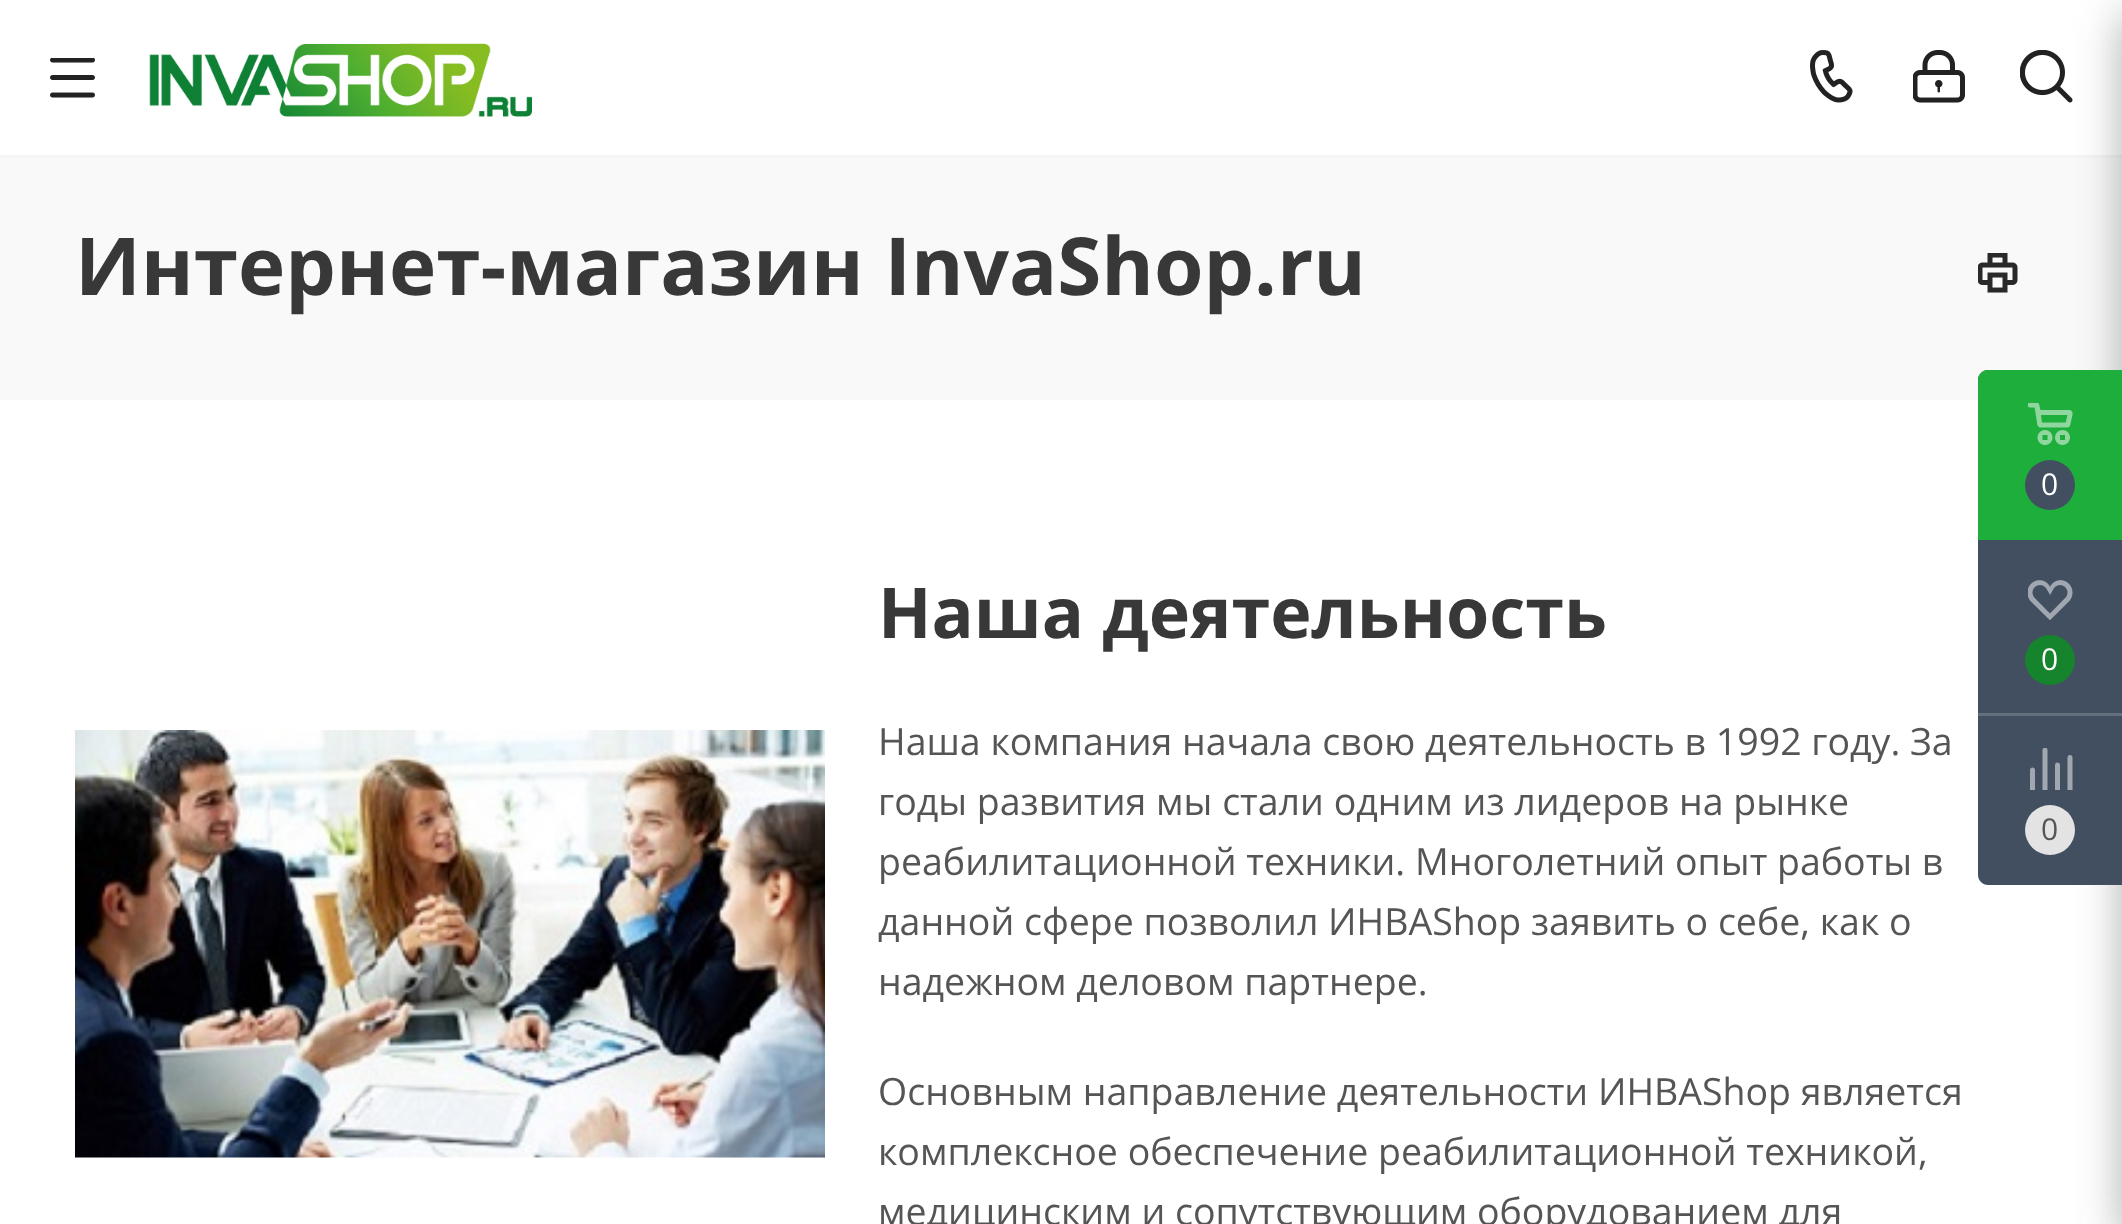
<!DOCTYPE html>
<meta charset="utf-8">
<style>body { margin: 0 } canvas { display: block }</style>
<canvas id="canvas" width="2122" height="1224"></canvas>
<script type="module">
  const canvas = document.getElementById("canvas");
  const g = canvas.getContext("2d");
  g.miterLimit = 4;
  g.fontKerning = "normal";
  function drawText(s, x, y, [font, color]) {
    g.font = font;
    g.fillStyle = color;
    g.fillText(s, x, y);
  }
  function fillBox(x, y, w, h, color) {
    g.fillStyle = color;
    g.fillRect(x, y, w, h);
  }
  async function drawPicture(src, x, y, w, h) {
    const img = new Image();
    img.src = src;
    await img.decode();
    g.drawImage(img, x, y, w, h);
  }

  const s1 = ["bold 80px Open Sans", "#383838"];
  const s2 = ["bold 70px Open Sans", "#383838"];
  const s3 = ["37.5px Open Sans", "#555555"];
  const s4 = ["30px Open Sans", "#FFFFFF"];
  const s5 = ["30px Open Sans", "#555555"];

  fillBox(0, 0, 2122, 1224, "#FFFFFF");
  fillBox(0, 155, 2122, 3, "#F5F5F5");
  await drawPicture("pic1.png", 50, 58, 45, 40);
  await drawPicture("pic2.png", 145, 40, 390, 80);
  await drawPicture("pic3.png", 1810, 50, 43, 53);
  await drawPicture("pic4.png", 1913, 50, 52, 53);
  await drawPicture("pic5.png", 2020, 50, 53, 53);
  fillBox(0, 158, 2122, 242, "#F9F9F9");
  drawText("Интернет-магазин InvaShop.ru", 75, 295, s1);
  await drawPicture("pic6.png", 1978, 253, 40, 40);
  drawText("Наша деятельность", 878, 638, s2);
  await drawPicture("pic7.png", 75, 730, 750, 428);
  drawText("Наша компания начала свою деятельность в 1992 году. За", 878, 755, s3);
  drawText("годы развития мы стали одним из лидеров на рынке", 878, 815, s3);
  drawText("реабилитационной техники. Многолетний опыт работы в", 878, 875, s3);
  drawText("данной сфере позволил ИНВАShop заявить о себе, как о", 878, 935, s3);
  drawText("надежном деловом партнере.", 878, 995, s3);
  drawText("Основным направление деятельности ИНВАShop является", 878, 1105, s3);
  drawText("комплексное обеспечение реабилитационной техникой,", 878, 1165, s3);
  drawText("медицинским и сопутствующим оборудованием для", 878, 1225, s3);
  g.fillStyle = "rgba(44, 44, 44, 0.4)";
  g.filter = "blur(22.5px)";
  g.beginPath();
  g.roundRect(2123, 15, 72, 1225, 5);
  g.fill();
  g.filter = "none";
  g.fillStyle = "#424F60";
  g.beginPath();
  g.moveTo(1988, 370);
  g.lineTo(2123, 370);
  g.lineTo(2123, 885);
  g.lineTo(1988, 885);
  g.bezierCurveTo(1982.5, 885, 1978, 880.5, 1978, 875);
  g.lineTo(1978, 380);
  g.bezierCurveTo(1978, 374.5, 1982.5, 370, 1988, 370);
  g.closePath();
  g.fill();
  g.fillStyle = "#1EAE3C";
  g.beginPath();
  g.moveTo(1988, 370);
  g.lineTo(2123, 370);
  g.lineTo(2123, 540);
  g.lineTo(1978, 540);
  g.lineTo(1978, 380);
  g.bezierCurveTo(1978, 374.5, 1982.5, 370, 1988, 370);
  g.closePath();
  g.fill();
  await drawPicture("pic8.png", 2028, 403, 45, 42);
  g.fillStyle = "#424F60";
  g.beginPath();
  g.arc(2050, 485, 25, 0, Math.PI * 2);
  g.fill();
  drawText("0", 2041, 495, s4);
  await drawPicture("pic9.png", 2028, 580, 45, 40);
  g.fillStyle = "#16832D";
  g.beginPath();
  g.arc(2050, 660, 25, 0, Math.PI * 2);
  g.fill();
  drawText("0", 2041, 670, s4);
  fillBox(1978, 713, 144, 3, "#636F7D");
  await drawPicture("pic10.png", 2030, 748, 43, 42);
  g.fillStyle = "#E3E3E3";
  g.beginPath();
  g.arc(2050, 830, 25, 0, Math.PI * 2);
  g.fill();
  drawText("0", 2041, 840, s5);
</script>
